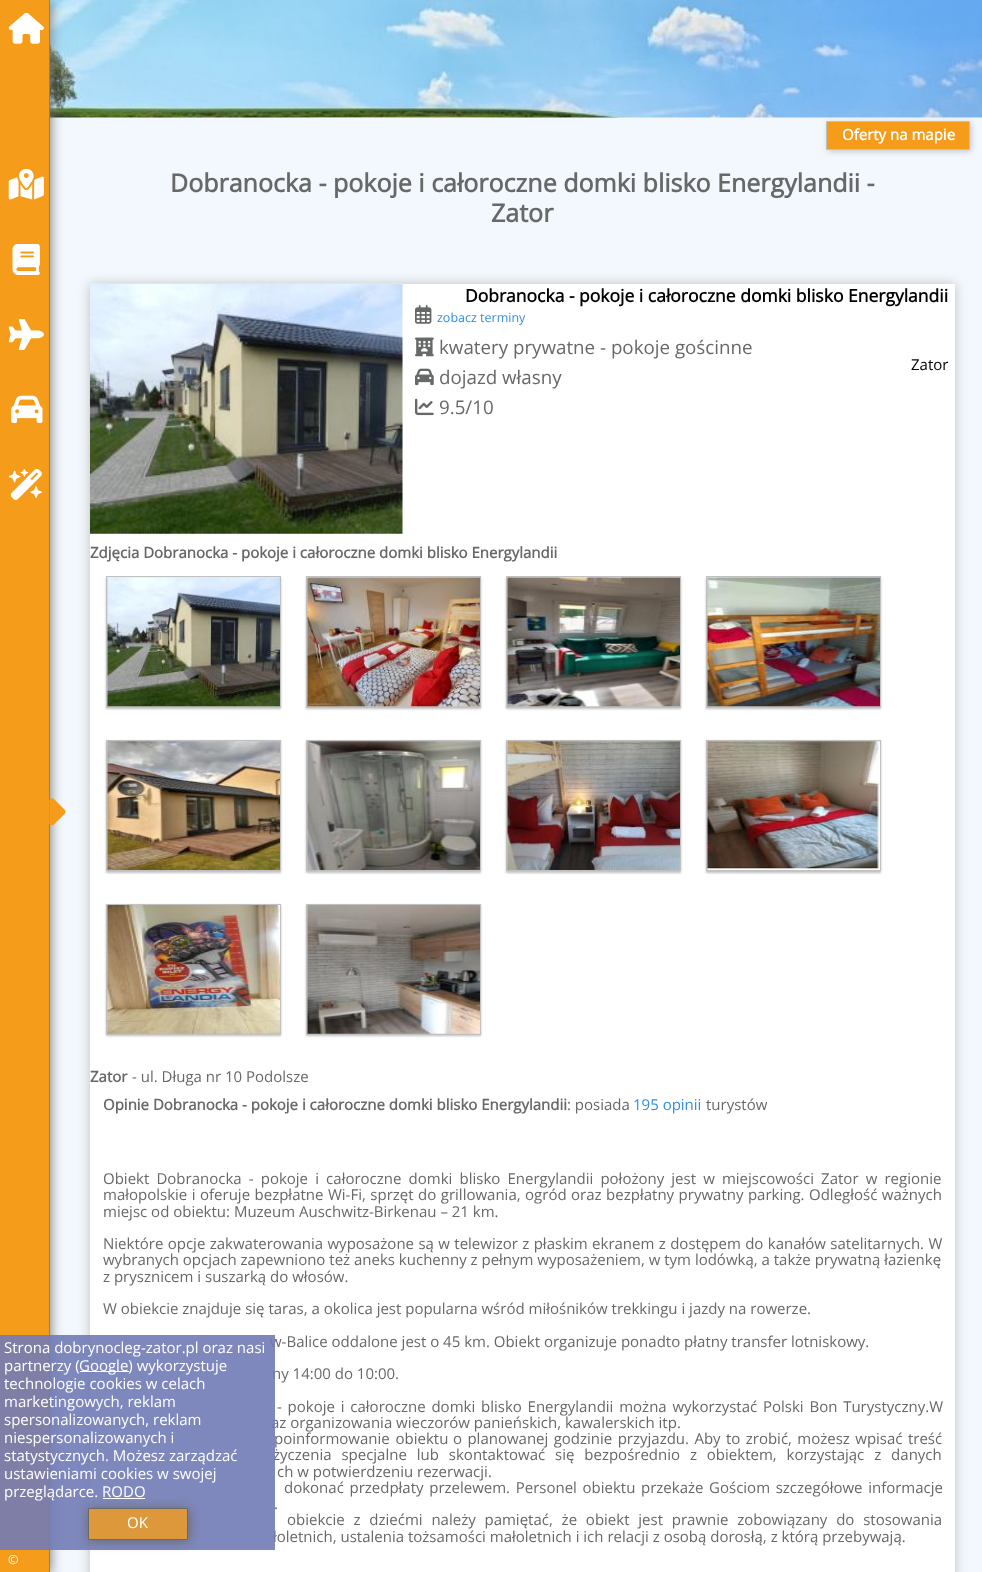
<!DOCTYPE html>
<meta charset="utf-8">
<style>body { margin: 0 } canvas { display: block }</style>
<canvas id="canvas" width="982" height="1572"></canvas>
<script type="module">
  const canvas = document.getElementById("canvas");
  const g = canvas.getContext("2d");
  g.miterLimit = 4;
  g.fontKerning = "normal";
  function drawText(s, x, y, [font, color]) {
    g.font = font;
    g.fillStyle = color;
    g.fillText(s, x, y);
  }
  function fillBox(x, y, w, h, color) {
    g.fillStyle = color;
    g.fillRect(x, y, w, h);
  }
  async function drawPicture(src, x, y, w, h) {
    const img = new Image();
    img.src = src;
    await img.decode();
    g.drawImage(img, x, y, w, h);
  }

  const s1 = ["bold 15px Open Sans", "#FFFFFF"];
  const s2 = ["bold 25px Open Sans", "#676868"];
  const s3 = ["bold 17.5px Open Sans", "#000000"];
  const s4 = ["12.5px Open Sans", "#348FE1"];
  const s5 = ["18.75px Open Sans", "#676868"];
  const s6 = ["15px Open Sans", "#000000"];
  const s7 = ["bold 15px Open Sans", "#676868"];
  const s8 = ["15px Open Sans", "#676868"];
  const s9 = ["15px Open Sans", "#348FE1"];
  const s10 = ["15px Open Sans", "#FFFFFF"];
  const s11 = ["12.5px Open Sans", "#FFFFFF"];

  fillBox(0, 0, 982, 1572, "#F2F8FD");
  await drawPicture("pic1.png", 50, 0, 932, 118);
  g.fillStyle = "#C0C0C0";
  g.filter = "blur(3px)";
  g.beginPath();
  g.rect(828, 123, 143, 28);
  g.fill();
  g.filter = "none";
  g.fillStyle = "#F59C1A";
  g.beginPath();
  g.rect(826.5, 121.5, 143, 28);
  g.fill();
  g.strokeStyle = "#C0C0C0";
  g.stroke();
  drawText("Oferty na mapie", 842, 140, s1);
  drawText("Dobranocka - pokoje i całoroczne domki blisko Energylandii -", 170, 192, s2);
  drawText("Zator", 491, 222, s2);
  g.fillStyle = "#C0C0C0";
  g.filter = "blur(6px)";
  g.beginPath();
  g.rect(90, 284, 865, 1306);
  g.fill();
  g.filter = "none";
  fillBox(90, 284, 865, 1288, "#FFFFFF");
  await drawPicture("pic2.png", 90, 283, 312, 1);
  await drawPicture("pic3.png", 90, 284, 313, 250);
  drawText("Dobranocka - pokoje i całoroczne domki blisko Energylandii", 465, 302, s3);
  await drawPicture("pic4.png", 415, 305, 17, 19);
  drawText("zobacz terminy", 437, 322, s4);
  await drawPicture("pic5.png", 415, 337, 19, 20);
  drawText("kwatery prywatne - pokoje gościnne", 439, 354, s5);
  drawText("Zator", 911, 370, s6);
  await drawPicture("pic6.png", 415, 368, 19, 18);
  drawText("dojazd własny", 439, 384, s5);
  await drawPicture("pic7.png", 415, 398, 19, 18);
  drawText("9.5/10", 439, 414, s5);
  drawText("Zdjęcia Dobranocka - pokoje i całoroczne domki blisko Energylandii", 90, 558, s7);
  g.fillStyle = "#C0C0C0";
  g.filter = "blur(1px)";
  g.beginPath();
  g.rect(106, 578, 175, 131);
  g.fill();
  g.filter = "none";
  g.strokeRect(106.5, 576.5, 174, 131);
  await drawPicture("pic8.png", 107, 577, 173, 130);
  g.filter = "blur(1px)";
  g.beginPath();
  g.rect(306, 578, 175, 131);
  g.fill();
  g.filter = "none";
  g.strokeRect(306.5, 576.5, 174, 131);
  await drawPicture("pic9.png", 307, 577, 173, 130);
  g.filter = "blur(1px)";
  g.beginPath();
  g.rect(506, 578, 175, 131);
  g.fill();
  g.filter = "none";
  g.strokeRect(506.5, 576.5, 174, 131);
  await drawPicture("pic10.png", 507, 577, 173, 130);
  g.filter = "blur(1px)";
  g.beginPath();
  g.rect(706, 578, 175, 131);
  g.fill();
  g.filter = "none";
  g.strokeRect(706.5, 576.5, 174, 131);
  await drawPicture("pic11.png", 707, 577, 173, 130);
  g.filter = "blur(1px)";
  g.beginPath();
  g.rect(106, 741, 175, 132);
  g.fill();
  g.filter = "none";
  g.strokeRect(106.5, 740.5, 174, 130);
  await drawPicture("pic12.png", 107, 741, 173, 129);
  g.filter = "blur(1px)";
  g.beginPath();
  g.rect(306, 741, 175, 132);
  g.fill();
  g.filter = "none";
  g.strokeRect(306.5, 740.5, 174, 130);
  await drawPicture("pic13.png", 307, 741, 173, 129);
  g.filter = "blur(1px)";
  g.beginPath();
  g.rect(506, 741, 175, 132);
  g.fill();
  g.filter = "none";
  g.strokeRect(506.5, 740.5, 174, 130);
  await drawPicture("pic14.png", 507, 741, 173, 129);
  g.filter = "blur(1px)";
  g.beginPath();
  g.rect(706, 741, 175, 132);
  g.fill();
  g.filter = "none";
  g.strokeRect(706.5, 740.5, 174, 130);
  await drawPicture("pic15.png", 707, 741, 173, 129);
  g.filter = "blur(1px)";
  g.beginPath();
  g.rect(106, 905, 175, 131);
  g.fill();
  g.filter = "none";
  g.strokeRect(106.5, 904.5, 174, 130);
  await drawPicture("pic16.png", 107, 905, 173, 129);
  g.filter = "blur(1px)";
  g.beginPath();
  g.rect(306, 905, 175, 131);
  g.fill();
  g.filter = "none";
  g.strokeRect(306.5, 904.5, 174, 130);
  await drawPicture("pic17.png", 307, 905, 173, 129);
  drawText("Zator", 90, 1082, s7);
  drawText("- ul. Długa nr 10 Podolsze", 132, 1082, s8);
  drawText("Opinie Dobranocka - pokoje i całoroczne domki blisko Energylandii", 103, 1110, s7);
  drawText(": posiada", 567, 1110, s8);
  drawText("195 opinii", 633, 1110, s9);
  drawText("turystów", 706, 1110, s8);
  g.wordSpacing = "3.25px";
  drawText("Obiekt Dobranocka - pokoje i całoroczne domki blisko Energylandii położony jest w miejscowości Zator w regionie", 103, 1184, s8);
  g.wordSpacing = "0.6px";
  drawText("małopolskie i oferuje bezpłatne Wi-Fi, sprzęt do grillowania, ogród oraz bezpłatny prywatny parking. Odległość ważnych", 103, 1200, s8);
  g.wordSpacing = "0px";
  drawText("miejsc od obiektu: Muzeum Auschwitz-Birkenau – 21 km.", 103, 1217, s8);
  g.wordSpacing = "0.5px";
  drawText("Niektóre opcje zakwaterowania wyposażone są w telewizor z płaskim ekranem z dostępem do kanałów satelitarnych. W", 103, 1249, s8);
  g.wordSpacing = "0px";
  drawText("wybranych opcjach zapewniono też aneks kuchenny z pełnym wyposażeniem, w tym lodówką, a także prywatną łazienkę", 103, 1265, s8);
  drawText("z prysznicem i suszarką do włosów.", 103, 1282, s8);
  drawText("W obiekcie znajduje się taras, a okolica jest popularna wśród miłośników trekkingu i jazdy na rowerze.", 103, 1314, s8);
  drawText("w-Balice oddalone jest o 45 km. Obiekt organizuje ponadto płatny transfer lotniskowy.", 270, 1347, s8);
  drawText("ny 14:00 do 10:00.", 272, 1379, s8);
  g.wordSpacing = "1.9px";
  drawText("- pokoje i całoroczne domki blisko Energylandii można wykorzystać Polski Bon Turystyczny.W", 277, 1412, s8);
  g.wordSpacing = "0px";
  drawText("az organizowania wieczorów panieńskich, kawalerskich itp.", 271, 1428, s8);
  g.wordSpacing = "2px";
  drawText("poinformowanie obiektu", 274, 1444, s8);
  g.wordSpacing = "1.5px";
  drawText("o planowanej godzinie przyjazdu. Aby to zrobić, możesz wpisać treść", 453, 1444, s8);
  g.wordSpacing = "6px";
  drawText("życzenia specjalne lub skontaktować się bezpośrednio z obiektem, korzystając z danych", 273, 1460, s8);
  g.wordSpacing = "0px";
  drawText("ch w potwierdzeniu rezerwacji.", 277, 1477, s8);
  g.wordSpacing = "1.75px";
  drawText("dokonać przedpłaty przelewem. Personel obiektu przekaże Gościom szczegółowe informacje", 284, 1493, s8);
  g.wordSpacing = "0px";
  drawText(".", 274, 1509, s8);
  g.wordSpacing = "4.9px";
  drawText("obiekcie z dziećmi należy pamiętać, że obiekt jest prawnie zobowiązany do stosowania", 287, 1525, s8);
  g.wordSpacing = "0px";
  drawText("łoletnich, ustalenia tożsamości małoletnich i ich relacji z osobą dorosłą, z którą przebywają.", 273, 1542, s8);
  g.fillStyle = "#828282";
  g.filter = "blur(6px)";
  g.beginPath();
  g.rect(1, 1, 50, 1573);
  g.fill();
  g.filter = "none";
  fillBox(0, 0, 49, 1572, "#F59C1A");
  fillBox(49, 0, 1, 1572, "#828282");
  fillBox(0, 1335, 275, 215, "rgba(113, 123, 182, 0.9)");
  drawText("Strona dobrynocleg-zator.pl oraz nasi", 4, 1353, s10);
  drawText("partnerzy (", 4, 1371, s10);
  fillBox(80, 1371, 49, 1, "#FFFFFF");
  drawText("Google) wykorzystuje", 79, 1371, s10);
  drawText("technologie cookies w celach", 4, 1389, s10);
  drawText("marketingowych, reklam", 4, 1407, s10);
  drawText("spersonalizowanych, reklam", 4, 1425, s10);
  drawText("niespersonalizowanych i", 4, 1443, s10);
  drawText("statystycznych. Możesz zarządzać", 4, 1461, s10);
  drawText("ustawieniami cookies w swojej", 4, 1479, s10);
  g.save();
  g.beginPath();
  g.moveTo(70, 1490);
  g.lineTo(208, 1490);
  g.lineTo(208, 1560);
  g.lineTo(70, 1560);
  g.closePath();
  g.moveTo(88, 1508);
  g.lineTo(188, 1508);
  g.lineTo(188, 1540);
  g.lineTo(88, 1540);
  g.closePath();
  g.clip("evenodd");
  g.fillStyle = "#676868";
  g.filter = "blur(6px)";
  g.beginPath();
  g.rect(89, 1509, 100, 32);
  g.fill();
  g.filter = "none";
  g.restore();
  drawText("przeglądarce. RODO", 4, 1497, s10);
  fillBox(103, 1498, 42, 1, "#FFFFFF");
  g.fillStyle = "rgba(245, 156, 26, 0.8)";
  g.beginPath();
  g.rect(88.5, 1508.5, 99, 31);
  g.fill();
  g.strokeStyle = "#676868";
  g.stroke();
  drawText("OK", 127, 1528, s10);
  await drawPicture("pic18.png", 8, 13, 36, 31);
  await drawPicture("pic19.png", 8, 169, 36, 31);
  await drawPicture("pic20.png", 12, 244, 28, 31);
  await drawPicture("pic21.png", 8, 319, 36, 31);
  await drawPicture("pic22.png", 11, 395, 32, 29);
  await drawPicture("pic23.png", 8, 469, 34, 31);
  await drawPicture("pic24.png", 49, 798, 17, 28);
  drawText("©", 8, 1564, s11);
</script>
